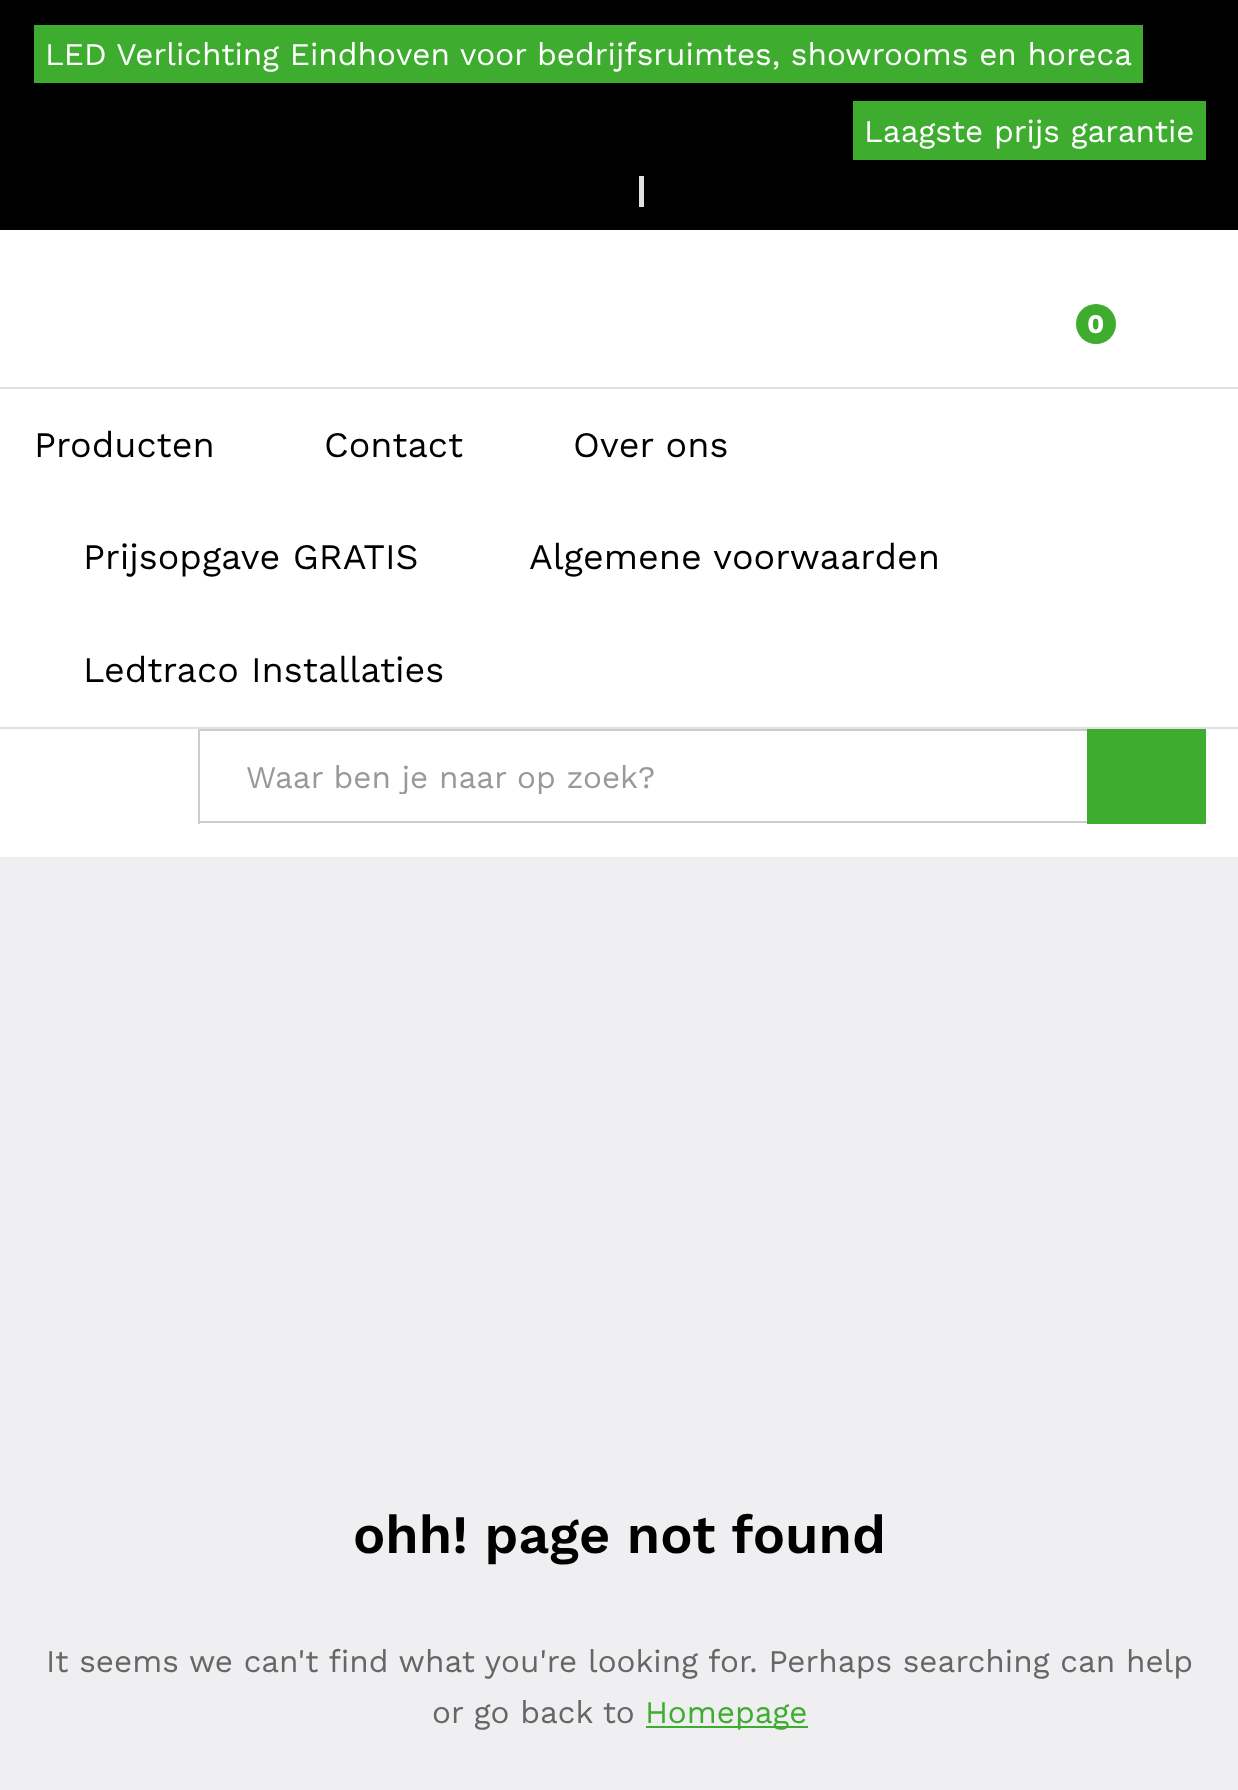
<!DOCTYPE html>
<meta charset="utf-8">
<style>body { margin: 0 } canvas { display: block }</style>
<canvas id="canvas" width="1238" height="1790"></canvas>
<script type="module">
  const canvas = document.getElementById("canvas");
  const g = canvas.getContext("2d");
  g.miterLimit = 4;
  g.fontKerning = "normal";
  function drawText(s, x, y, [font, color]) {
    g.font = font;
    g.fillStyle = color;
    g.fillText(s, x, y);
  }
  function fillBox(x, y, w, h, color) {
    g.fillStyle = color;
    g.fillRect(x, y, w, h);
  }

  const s1 = ["31.5px Work Sans", "#FFFFFF"];
  const s2 = ["bold 27px Work Sans", "#FFFFFF"];
  const s3 = ["36px Work Sans", "#000000"];
  const s4 = ["31.5px Work Sans", "#999999"];
  const s5 = ["600 54px Work Sans", "#000000"];
  const s6 = ["31.5px Work Sans", "#666666"];
  const s7 = ["31.5px Work Sans", "#3EAC2F"];

  fillBox(0, 0, 1238, 1790, "#FFFFFF");
  fillBox(0, 0, 1238, 230, "#000000");
  fillBox(34, 25, 1109, 58, "#3EAC2F");
  drawText("LED Verlichting Eindhoven voor bedrijfsruimtes, showrooms en horeca", 45, 65, s1);
  fillBox(853, 101, 353, 59, "#3EAC2F");
  drawText("Laagste prijs garantie", 864, 142, s1);
  fillBox(639, 176, 5, 31, "#E1E1E1");
  g.fillStyle = "#3EAC2F";
  g.beginPath();
  g.arc(1096, 324, 20, 0, Math.PI * 2);
  g.fill();
  drawText("0", 1087, 333, s2);
  fillBox(0, 387, 1238, 2, "#E1E1E1");
  fillBox(0, 727, 1238, 2, "#E1E1E1");
  drawText("Producten", 34, 457, s3);
  drawText("Contact", 324, 457, s3);
  drawText("Over ons", 573, 457, s3);
  drawText("Prijsopgave GRATIS", 83, 569, s3);
  drawText("Algemene voorwaarden", 529, 569, s3);
  drawText("Ledtraco Installaties", 83, 682, s3);
  fillBox(198, 729, 889, 2, "#CCCCCC");
  fillBox(198, 821, 889, 2, "#CCCCCC");
  fillBox(198, 729, 2, 95, "#CCCCCC");
  g.save();
  g.beginPath();
  g.rect(245, 758, 797, 36);
  g.clip();
  drawText("Waar ben je naar op zoek?", 246, 788, s4);
  g.restore();
  fillBox(1087, 729, 119, 95, "#3EAC2F");
  fillBox(0, 857, 1238, 933, "#EFEEF0");
  drawText("ohh! page not found", 353, 1553, s5);
  drawText("It seems we can't find what you're looking for. Perhaps searching can help", 46, 1672, s6);
  drawText("or go back to", 432, 1723, s6);
  fillBox(646, 1726, 162, 2, "#3EAC2F");
  drawText("Homepage", 645, 1723, s7);
</script>
